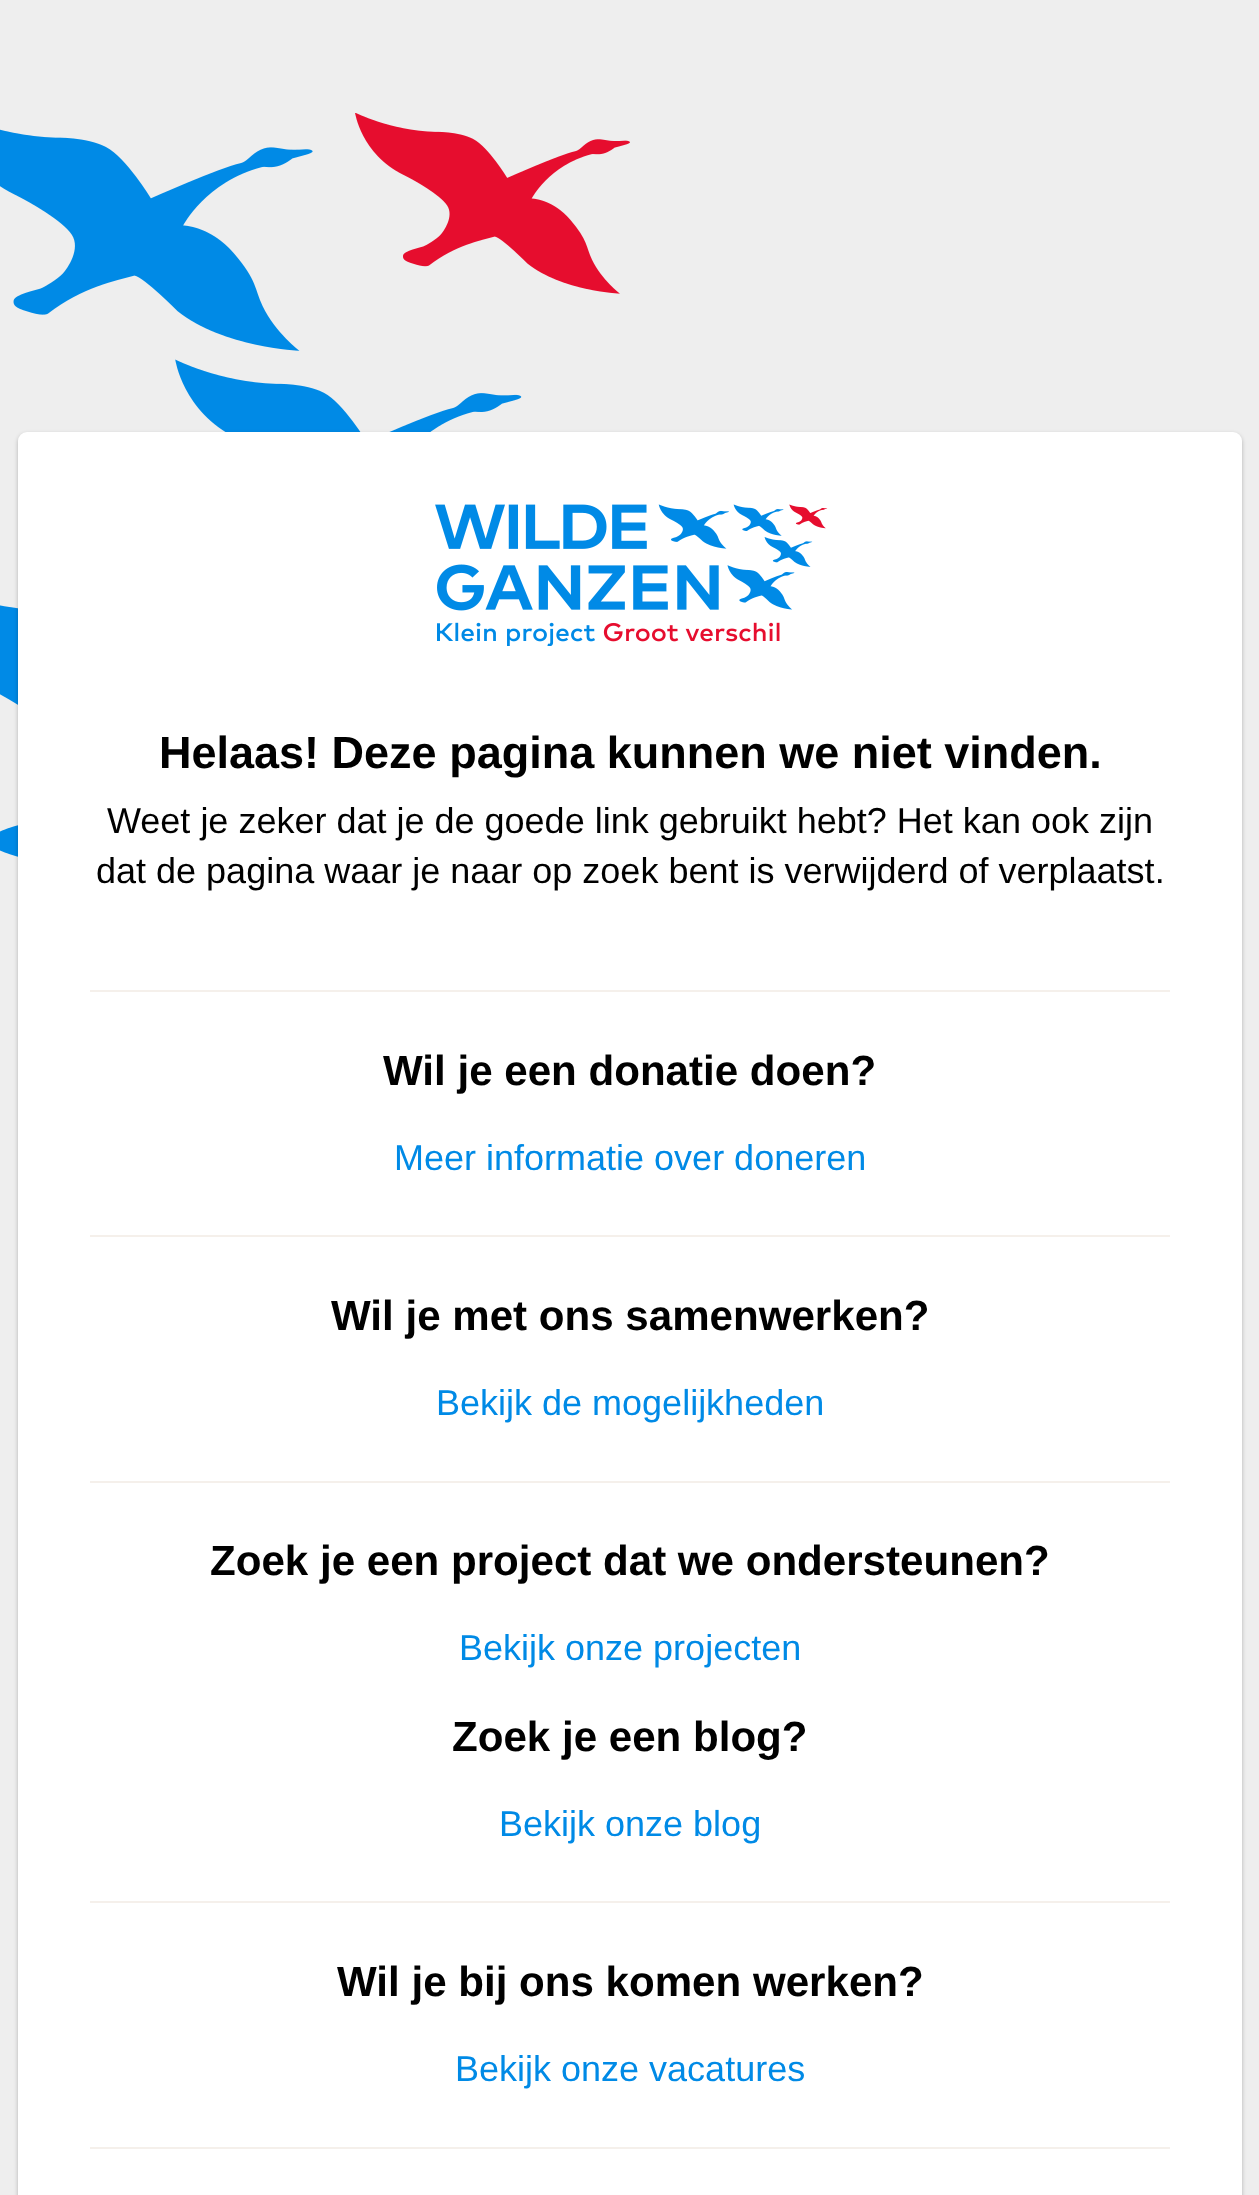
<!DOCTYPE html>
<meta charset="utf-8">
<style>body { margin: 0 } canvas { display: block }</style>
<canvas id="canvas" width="1259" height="2195"></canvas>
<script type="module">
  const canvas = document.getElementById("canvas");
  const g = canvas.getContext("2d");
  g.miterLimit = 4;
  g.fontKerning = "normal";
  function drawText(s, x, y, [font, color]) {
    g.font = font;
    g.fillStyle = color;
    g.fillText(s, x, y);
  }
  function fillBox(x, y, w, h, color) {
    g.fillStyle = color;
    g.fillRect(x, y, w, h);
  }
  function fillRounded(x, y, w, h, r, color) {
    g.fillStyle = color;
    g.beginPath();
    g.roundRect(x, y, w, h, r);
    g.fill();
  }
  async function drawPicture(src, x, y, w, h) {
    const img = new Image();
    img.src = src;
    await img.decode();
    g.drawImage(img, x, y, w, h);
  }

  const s1 = ["bold 45px Liberation Sans", "#000000"];
  const s2 = ["36px Liberation Sans", "#000000"];
  const s3 = ["bold 42.1px Liberation Sans", "#000000"];
  const s4 = ["36px Liberation Sans", "#008AE6"];

  fillBox(0, 0, 1259, 2195, "#EEEEEE");
  await drawPicture("pic1.png", 0, 113, 630, 744);
  g.fillStyle = "rgba(0, 0, 0, 0.25)";
  g.filter = "blur(2px)";
  g.beginPath();
  g.roundRect(18, 434, 1224, 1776, 9);
  g.fill();
  g.filter = "none";
  fillRounded(18, 432, 1224, 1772, 9, "#FFFFFF");
  await drawPicture("pic2.png", 435, 504, 393, 142);
  drawText("Helaas! Deze pagina kunnen we niet vinden.", 159, 768, s1);
  drawText("Weet je zeker dat je de goede link gebruikt hebt? Het kan ook zijn", 107, 833, s2);
  drawText("dat de pagina waar je naar op zoek bent is verwijderd of verplaatst.", 96, 883, s2);
  fillBox(90, 990, 1080, 2, "#F5F0EB");
  drawText("Wil je een donatie doen?", 383, 1085, s3);
  drawText("Meer informatie over doneren", 394, 1170, s4);
  fillBox(90, 1235, 1080, 2, "#F5F0EB");
  drawText("Wil je met ons samenwerken?", 331, 1330, s3);
  drawText("Bekijk de mogelijkheden", 436, 1415, s4);
  fillBox(90, 1481, 1080, 2, "#F5F0EB");
  drawText("Zoek je een project dat we ondersteunen?", 210, 1575, s3);
  drawText("Bekijk onze projecten", 459, 1660, s4);
  drawText("Zoek je een blog?", 452, 1751, s3);
  drawText("Bekijk onze blog", 499, 1836, s4);
  fillBox(90, 1901, 1080, 2, "#F5F0EB");
  drawText("Wil je bij ons komen werken?", 337, 1996, s3);
  drawText("Bekijk onze vacatures", 455, 2081, s4);
  fillBox(90, 2147, 1080, 2, "#F5F0EB");
</script>
